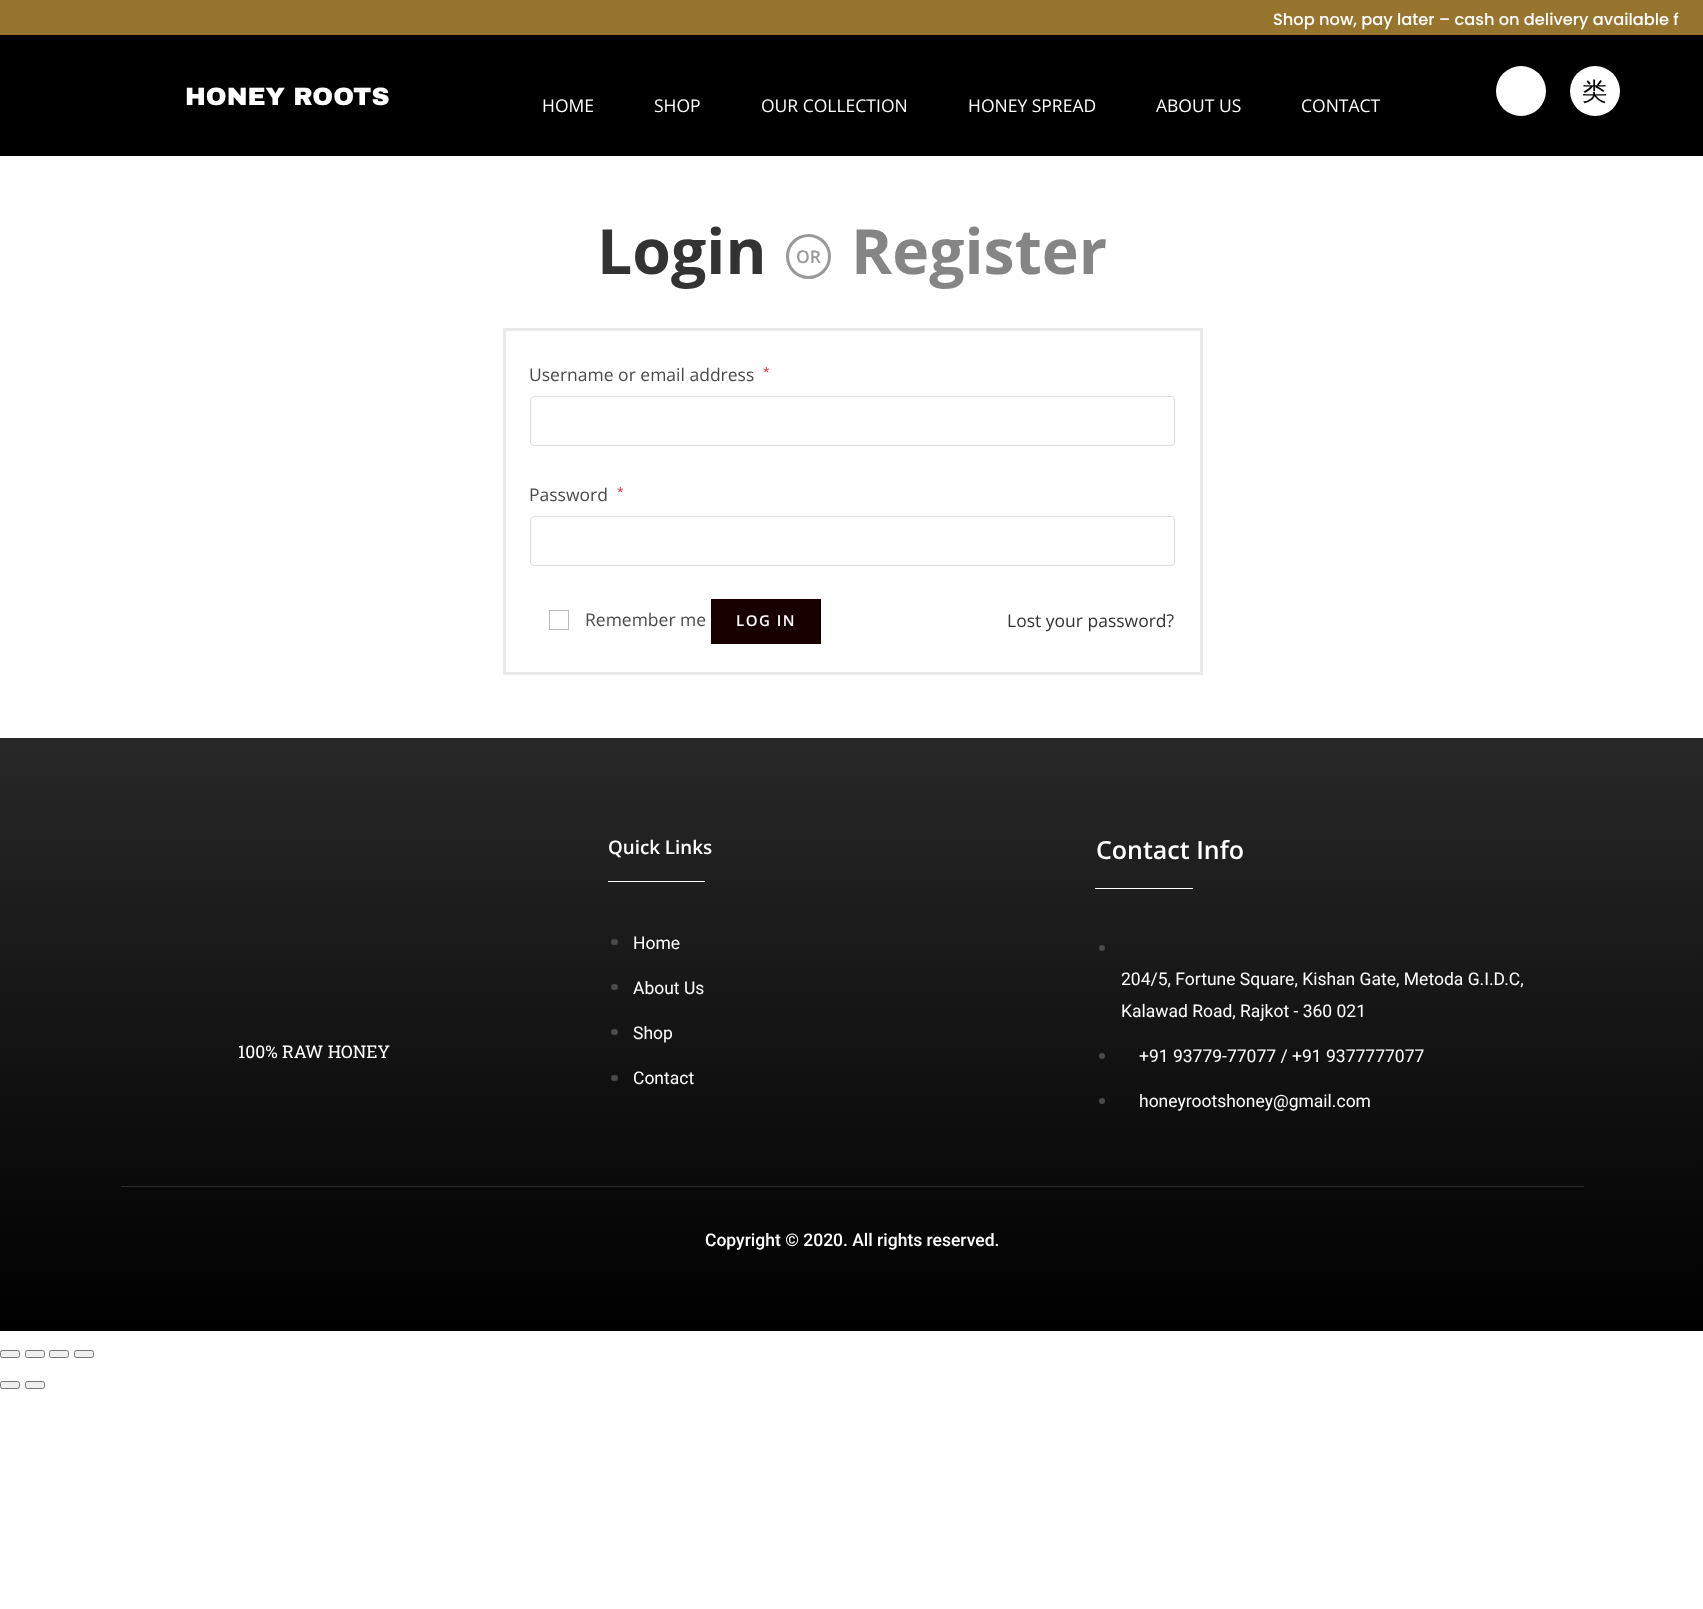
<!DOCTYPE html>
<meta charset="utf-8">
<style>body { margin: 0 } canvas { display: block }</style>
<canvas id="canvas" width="1703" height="1609"></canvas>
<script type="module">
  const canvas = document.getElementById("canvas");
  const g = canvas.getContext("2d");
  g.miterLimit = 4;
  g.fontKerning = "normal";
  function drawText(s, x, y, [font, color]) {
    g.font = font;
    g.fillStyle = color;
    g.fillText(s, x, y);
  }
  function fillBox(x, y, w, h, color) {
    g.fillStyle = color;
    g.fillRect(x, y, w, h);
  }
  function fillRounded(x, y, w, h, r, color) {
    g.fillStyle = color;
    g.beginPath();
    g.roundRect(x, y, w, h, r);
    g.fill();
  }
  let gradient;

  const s1 = ["500 16.25px Poppins", "#FFFFFF"];
  const s2 = ["900 25px Archivo Black", "#FFFFFF"];
  const s3 = ["17.5px Open Sans", "#FFFFFF"];
  const s4 = ["500 25px WenQuanYi Zen Hei", "#000000"];
  const s5 = ["bold 62.5px Open Sans", "#333333"];
  const s6 = ["600 17.5px Open Sans", "#999999"];
  const s7 = ["bold 62.5px Open Sans", "#858585"];
  const s8 = ["17.5px Open Sans", "#4A4A4A"];
  const s9 = ["12px Open Sans", "#E42234"];
  const s10 = ["600 15px Open Sans", "#FFFFFF"];
  const s11 = ["17.5px Open Sans", "#333333"];
  const s12 = ["17.5px Roboto Slab", "#FFFFFF"];
  const s13 = ["600 18.75px Open Sans", "#FFFFFF"];
  const s14 = ["17.5px Roboto", "#FFFFFF"];
  const s15 = ["600 25px Open Sans", "#FFFFFF"];
  const s16 = ["500 17.5px Roboto", "#FFFFFF"];

  fillBox(0, 0, 1703, 1609, "#FFFFFF");
  fillBox(0, 0, 1703, 35, "#98752F");
  drawText("Shop now, pay later – cash on delivery available f", 1273, 25, s1);
  fillBox(0, 35, 1703, 121, "#000000");
  drawText("HONEY ROOTS", 185, 105, s2);
  drawText("HOME", 542, 112, s3);
  drawText("SHOP", 654, 112, s3);
  drawText("OUR COLLECTION", 761, 112, s3);
  drawText("HONEY SPREAD", 968, 112, s3);
  drawText("ABOUT US", 1156, 112, s3);
  drawText("CONTACT", 1301, 112, s3);
  g.beginPath();
  g.arc(1521, 91, 25, 0, Math.PI * 2);
  g.fill();
  g.beginPath();
  g.arc(1595, 91, 25, 0, Math.PI * 2);
  g.fill();
  drawText("类", 1582, 100, s4);
  drawText("Login", 597, 274, s5);
  g.beginPath();
  g.arc(808.5, 256.5, 21, 0, Math.PI * 2);
  g.strokeStyle = "#999999";
  g.lineWidth = 3;
  g.stroke();
  drawText("OR", 796, 263, s6);
  drawText("Register", 851, 274, s7);
  g.strokeStyle = "#EAEAEA";
  g.strokeRect(504.5, 329.5, 697, 344);
  drawText("Username or email address", 529, 381, s8);
  drawText("*", 763, 376, s9);
  g.beginPath();
  g.roundRect(530.5, 396.5, 644, 49, 3.5);
  g.strokeStyle = "#DDDDDD";
  g.lineWidth = 1;
  g.stroke();
  drawText("Password", 529, 501, s8);
  drawText("*", 617, 496, s9);
  g.beginPath();
  g.roundRect(530.5, 516.5, 644, 49, 3.5);
  g.stroke();
  g.strokeStyle = "#BBBBBB";
  g.strokeRect(549.5, 610.5, 19, 19);
  drawText("Remember me", 585, 626, s8);
  fillBox(711, 599, 110, 45, "#190000");
  g.letterSpacing = "1.5px";
  drawText("LOG IN", 736, 626, s10);
  g.letterSpacing = "0px";
  drawText("Lost your password?", 1007, 627, s11);
  gradient = g.createLinearGradient(852, 737, 852, 1331);
  gradient.addColorStop(0, "#282828");
  gradient.addColorStop(1, "#000000");
  g.fillStyle = gradient;
  g.fillRect(0, 738, 1703, 593);
  drawText("100% RAW HONEY", 238, 1058, s12);
  drawText("Quick Links", 608, 854, s13);
  fillBox(608, 881, 97, 1, "#FFFFFF");
  fillRounded(611, 939, 7, 6, 3, "#4A4A4A");
  drawText("Home", 633, 949, s14);
  fillRounded(611, 984, 7, 6, 3, "#4A4A4A");
  drawText("About Us", 633, 994, s14);
  fillRounded(611, 1029, 7, 6, 3, "#4A4A4A");
  drawText("Shop", 633, 1039, s14);
  fillRounded(611, 1075, 7, 6, 3, "#4A4A4A");
  drawText("Contact", 633, 1084, s14);
  drawText("Contact Info", 1096, 859, s15);
  fillBox(1095, 888, 98, 1, "#FFFFFF");
  g.fillStyle = "#4A4A4A";
  g.beginPath();
  g.arc(1102, 948, 3, 0, Math.PI * 2);
  g.fill();
  drawText("204/5, Fortune Square, Kishan Gate, Metoda G.I.D.C,", 1121, 985, s14);
  drawText("Kalawad Road, Rajkot - 360 021", 1121, 1017, s14);
  g.fillStyle = "#4A4A4A";
  g.beginPath();
  g.arc(1102, 1056, 3, 0, Math.PI * 2);
  g.fill();
  drawText("+91 93779-77077 / +91 9377777077", 1139, 1062, s14);
  g.fillStyle = "#4A4A4A";
  g.beginPath();
  g.arc(1102, 1101, 3, 0, Math.PI * 2);
  g.fill();
  drawText("honeyrootshoney@gmail.com", 1139, 1107, s14);
  fillBox(121, 1186, 1463, 1, "#2D2D2D");
  drawText("Copyright © 2020. All rights reserved.", 705, 1246, s16);
  g.fillStyle = "#EFEFEF";
  g.beginPath();
  g.roundRect(0.5, 1350.5, 19, 7, 2);
  g.fill();
  g.strokeStyle = "#767676";
  g.stroke();
  g.beginPath();
  g.roundRect(25.5, 1350.5, 19, 7, 2);
  g.fill();
  g.stroke();
  g.beginPath();
  g.roundRect(49.5, 1350.5, 19, 7, 2);
  g.fill();
  g.stroke();
  g.beginPath();
  g.roundRect(74.5, 1350.5, 19, 7, 2);
  g.fill();
  g.stroke();
  g.beginPath();
  g.roundRect(0.5, 1381.5, 19, 7, 2);
  g.fill();
  g.stroke();
  g.beginPath();
  g.roundRect(25.5, 1381.5, 19, 7, 2);
  g.fill();
  g.stroke();
</script>
